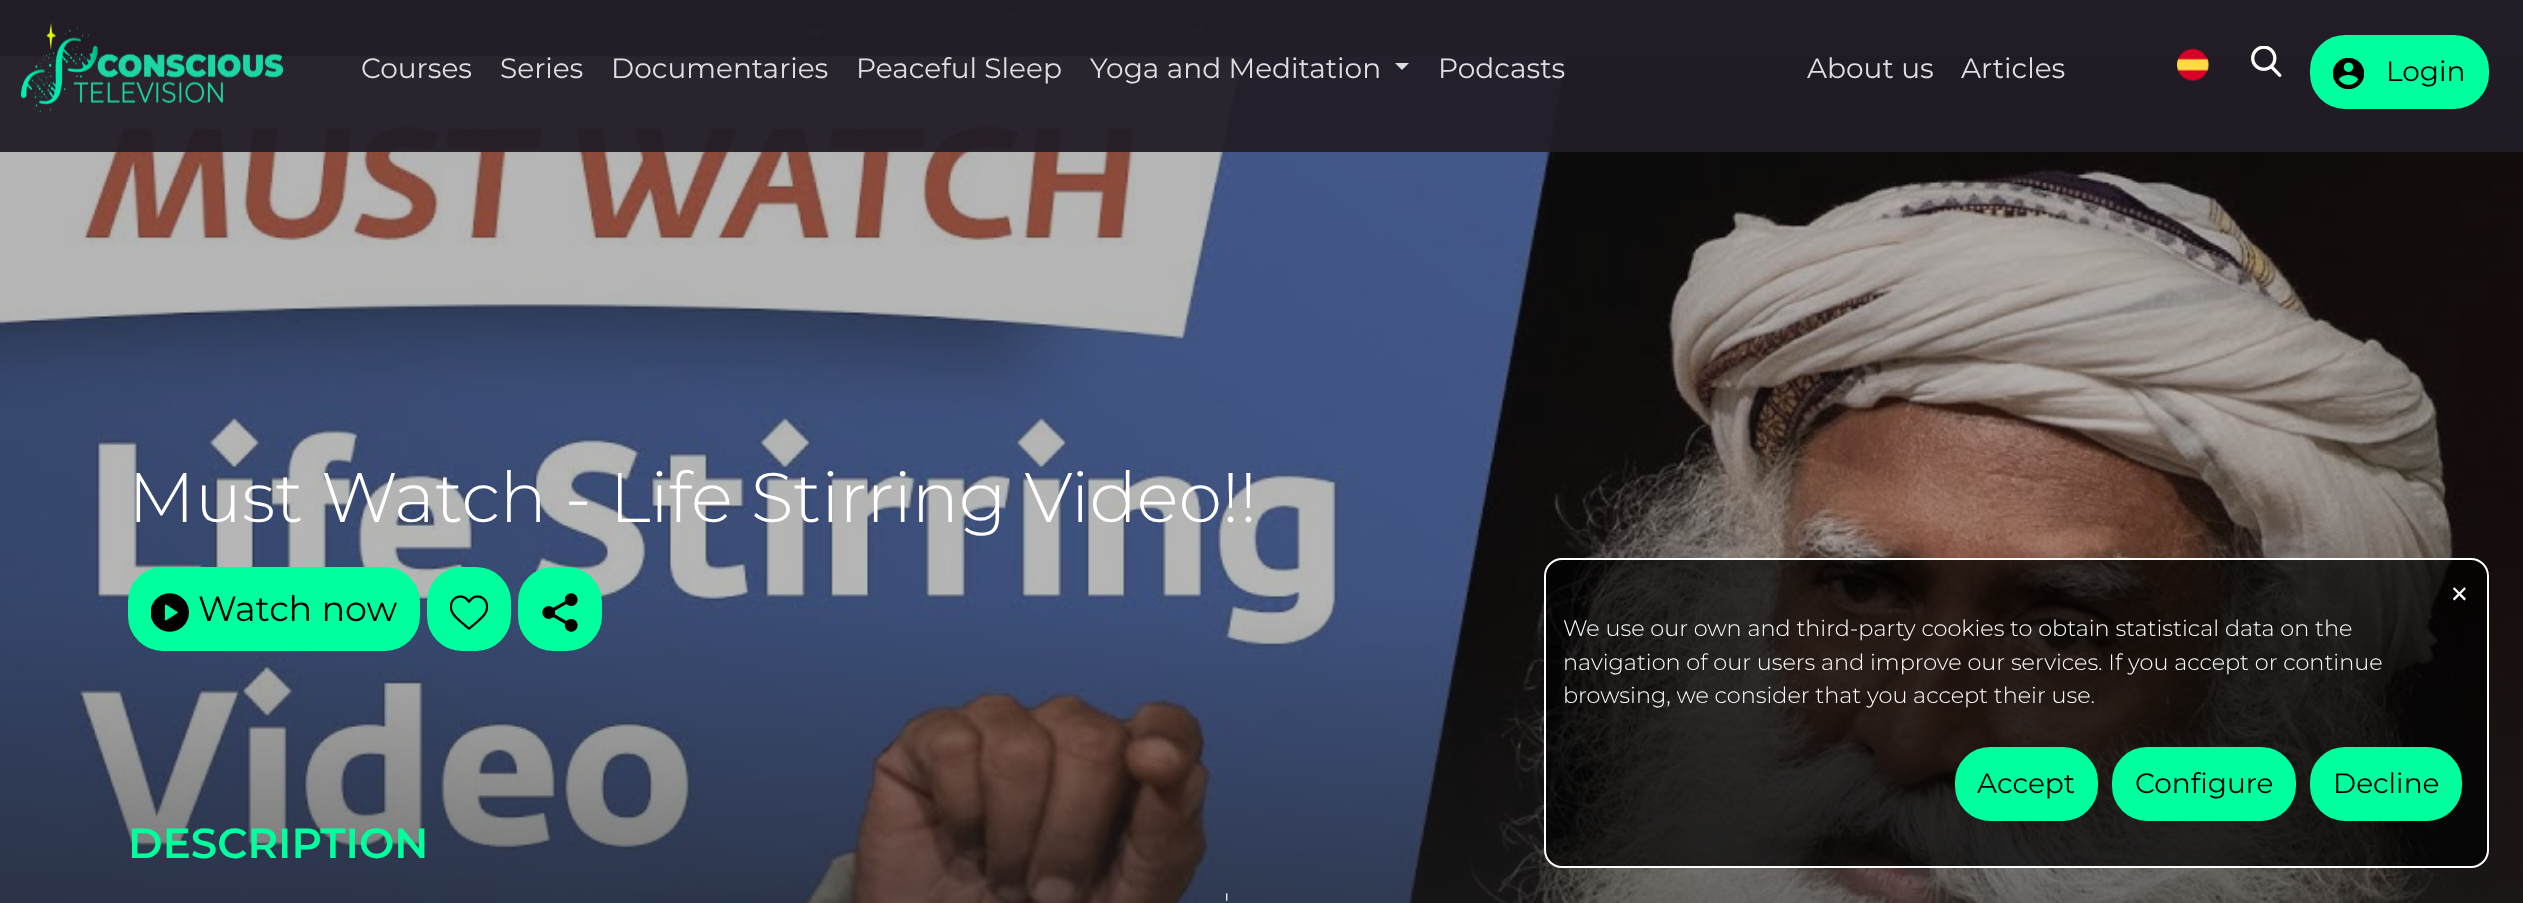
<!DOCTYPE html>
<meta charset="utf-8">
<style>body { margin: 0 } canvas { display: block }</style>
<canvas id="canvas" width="2523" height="903"></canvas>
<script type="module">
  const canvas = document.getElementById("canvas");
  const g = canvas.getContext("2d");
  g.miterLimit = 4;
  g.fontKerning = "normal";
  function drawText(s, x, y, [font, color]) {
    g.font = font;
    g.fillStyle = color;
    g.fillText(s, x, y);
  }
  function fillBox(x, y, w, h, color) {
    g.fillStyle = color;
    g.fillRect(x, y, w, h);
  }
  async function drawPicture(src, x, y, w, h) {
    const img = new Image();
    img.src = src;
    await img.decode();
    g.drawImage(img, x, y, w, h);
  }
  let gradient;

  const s1 = ["28px Montserrat", "#DFDEE0"];
  const s2 = ["28px Montserrat", "#000000"];
  const s3 = ["300 70px Montserrat", "#FFFFFF"];
  const s4 = ["35px Montserrat", "#000000"];
  const s5 = ["600 42px Montserrat", "#00FF9D"];
  const s6 = ["300 28px Montserrat", "#FFFFFF"];
  const s7 = ["22.4px DejaVu Sans", "#FFFFFF"];
  const s8 = ["300 22.4px Montserrat", "#FFFFFF"];

  fillBox(0, 0, 2523, 903, "#202020");
  await drawPicture("pic1.png", 808, 7, 1575, 50);
  await drawPicture("pic6.png", 0, 56, 2523, 847);
  gradient = g.createLinearGradient(1262, 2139, 1262, 56);
  gradient.addColorStop(0.41, "#202020");
  gradient.addColorStop(0.74, "rgba(32, 32, 32, 0.33)");
  g.fillStyle = gradient;
  g.fillRect(0, 56, 2523, 847);
  fillBox(0, 0, 2523, 152, "rgba(34, 28, 38, 0.95)");
  await drawPicture("pic2.png", 21, 23, 263, 90);
  drawText("Courses", 361, 78, s1);
  drawText("Series", 500, 78, s1);
  drawText("Documentaries", 611, 78, s1);
  drawText("Peaceful Sleep", 856, 78, s1);
  drawText("Yoga and Meditation", 1090, 78, s1);
  g.fillStyle = "#DEDDDF";
  g.beginPath();
  g.moveTo(1395, 63);
  g.lineTo(1409, 63);
  g.lineTo(1402, 70);
  g.closePath();
  g.fill();
  drawText("Podcasts", 1438, 78, s1);
  drawText("About us", 1807, 78, s1);
  drawText("Articles", 1961, 78, s1);
  await drawPicture("pic3.png", 2177, 48, 32, 33);
  await drawPicture("pic4.png", 2251, 46, 31, 31);
  g.fillStyle = "#00FF9D";
  g.beginPath();
  g.roundRect(2311, 36, 177, 72, 34);
  g.fill();
  g.strokeStyle = "#00FF9D";
  g.lineWidth = 2;
  g.stroke();
  await drawPicture("pic5.png", 2333, 58, 31, 31);
  drawText("Login", 2386, 81, s2);
  drawText("Must Watch - Life Stirring Video!!", 128, 522, s3);
  g.fillStyle = "#00FF9D";
  g.beginPath();
  g.roundRect(129, 568, 290, 82, 34);
  g.fill();
  g.stroke();
  await drawPicture("pic7.png", 151, 593, 38, 39);
  drawText("Watch now", 198, 621, s4);
  g.fillStyle = "#00FF9D";
  g.beginPath();
  g.roundRect(428, 568, 82, 82, 34);
  g.fill();
  g.stroke();
  await drawPicture("pic8.png", 450, 595, 38, 35);
  g.beginPath();
  g.roundRect(519, 568, 82, 82, 34);
  g.fill();
  g.stroke();
  await drawPicture("pic9.png", 542, 593, 36, 39);
  drawText("DESCRIPTION", 128, 858, s5);
  drawText("'", 1224, 913, s6);
  g.fillStyle = "rgba(0, 0, 0, 0.7)";
  g.beginPath();
  g.roundRect(1545, 559, 943, 308, 17);
  g.fill();
  g.strokeStyle = "#FFFFFF";
  g.stroke();
  drawText("✕", 2450, 602, s7);
  drawText("We use our own and third-party cookies to obtain statistical data on the", 1563, 636, s8);
  drawText("navigation of our users and improve our services. If you accept or continue", 1563, 670, s8);
  drawText("browsing, we consider that you accept their use.", 1563, 703, s8);
  g.fillStyle = "#00FF9D";
  g.beginPath();
  g.roundRect(1956, 748, 141, 72, 34);
  g.fill();
  g.strokeStyle = "#00FF9D";
  g.stroke();
  drawText("Accept", 1977, 793, s2);
  g.fillStyle = "#00FF9D";
  g.beginPath();
  g.roundRect(2113, 748, 182, 72, 34);
  g.fill();
  g.stroke();
  drawText("Configure", 2135, 793, s2);
  g.fillStyle = "#00FF9D";
  g.beginPath();
  g.roundRect(2311, 748, 150, 72, 34);
  g.fill();
  g.stroke();
  drawText("Decline", 2333, 793, s2);
</script>
